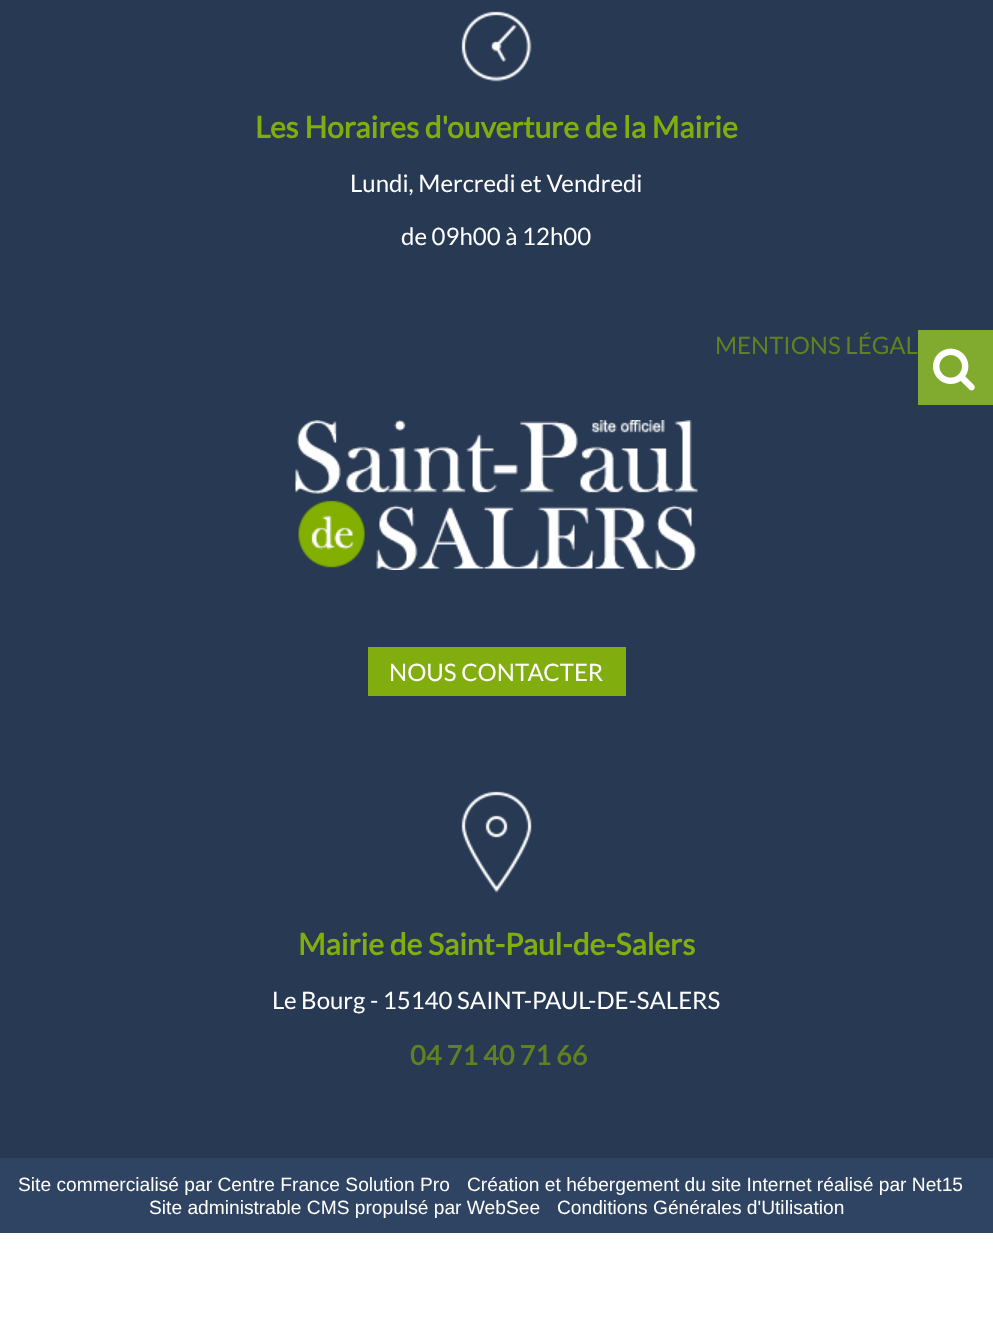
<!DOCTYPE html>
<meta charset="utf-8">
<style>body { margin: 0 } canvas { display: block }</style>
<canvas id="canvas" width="993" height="1320"></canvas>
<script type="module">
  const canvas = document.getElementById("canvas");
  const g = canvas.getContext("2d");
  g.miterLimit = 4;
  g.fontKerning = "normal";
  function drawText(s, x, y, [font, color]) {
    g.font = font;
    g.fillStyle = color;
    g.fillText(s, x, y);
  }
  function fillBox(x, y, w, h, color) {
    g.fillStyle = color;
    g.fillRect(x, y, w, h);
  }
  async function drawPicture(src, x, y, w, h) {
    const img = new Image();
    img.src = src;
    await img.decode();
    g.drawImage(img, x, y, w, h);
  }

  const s1 = ["bold 30px Lato", "#82AD0E"];
  const s2 = ["24px Lato", "#FFFFFF"];
  const s3 = ["24px Lato", "#618021"];
  const s4 = ["bold 27px Lato", "#618021"];
  const s5 = ["19.2px Liberation Sans", "#FFFFFF"];

  fillBox(0, 0, 993, 1320, "#FFFFFF");
  fillBox(0, 0, 993, 1158, "#273953");
  await drawPicture("pic1.png", 461, 11, 71, 71);
  drawText("Les Horaires d'ouverture de la Mairie", 255, 138, s1);
  drawText("Lundi, Mercredi et Vendredi", 350, 192, s2);
  drawText("de 09h00 à 12h00", 401, 245, s2);
  drawText("MENTIONS LÉGAL", 715, 354, s3);
  await drawPicture("pic2.png", 295, 420, 403, 150);
  fillBox(368, 647, 258, 49, "#82AD0E");
  drawText("NOUS CONTACTER", 389, 681, s2);
  await drawPicture("pic3.png", 461, 791, 71, 102);
  drawText("Mairie de Saint-Paul-de-Salers", 298, 955, s1);
  drawText("Le Bourg - 15140 SAINT-PAUL-DE-SALERS", 272, 1009, s2);
  drawText("04 71 40 71 66", 410, 1065, s4);
  fillBox(0, 1158, 993, 75, "#2F4462");
  drawText("Site commercialisé par Centre France Solution Pro", 18, 1191, s5);
  drawText("Création et hébergement du site Internet réalisé par Net15", 467, 1191, s5);
  drawText("Site administrable CMS propulsé par WebSee", 149, 1214, s5);
  drawText("Conditions Générales d'Utilisation", 557, 1214, s5);
  fillBox(918, 330, 75, 75, "#81AB2E");
  await drawPicture("pic4.png", 933, 348, 42, 43);
</script>
